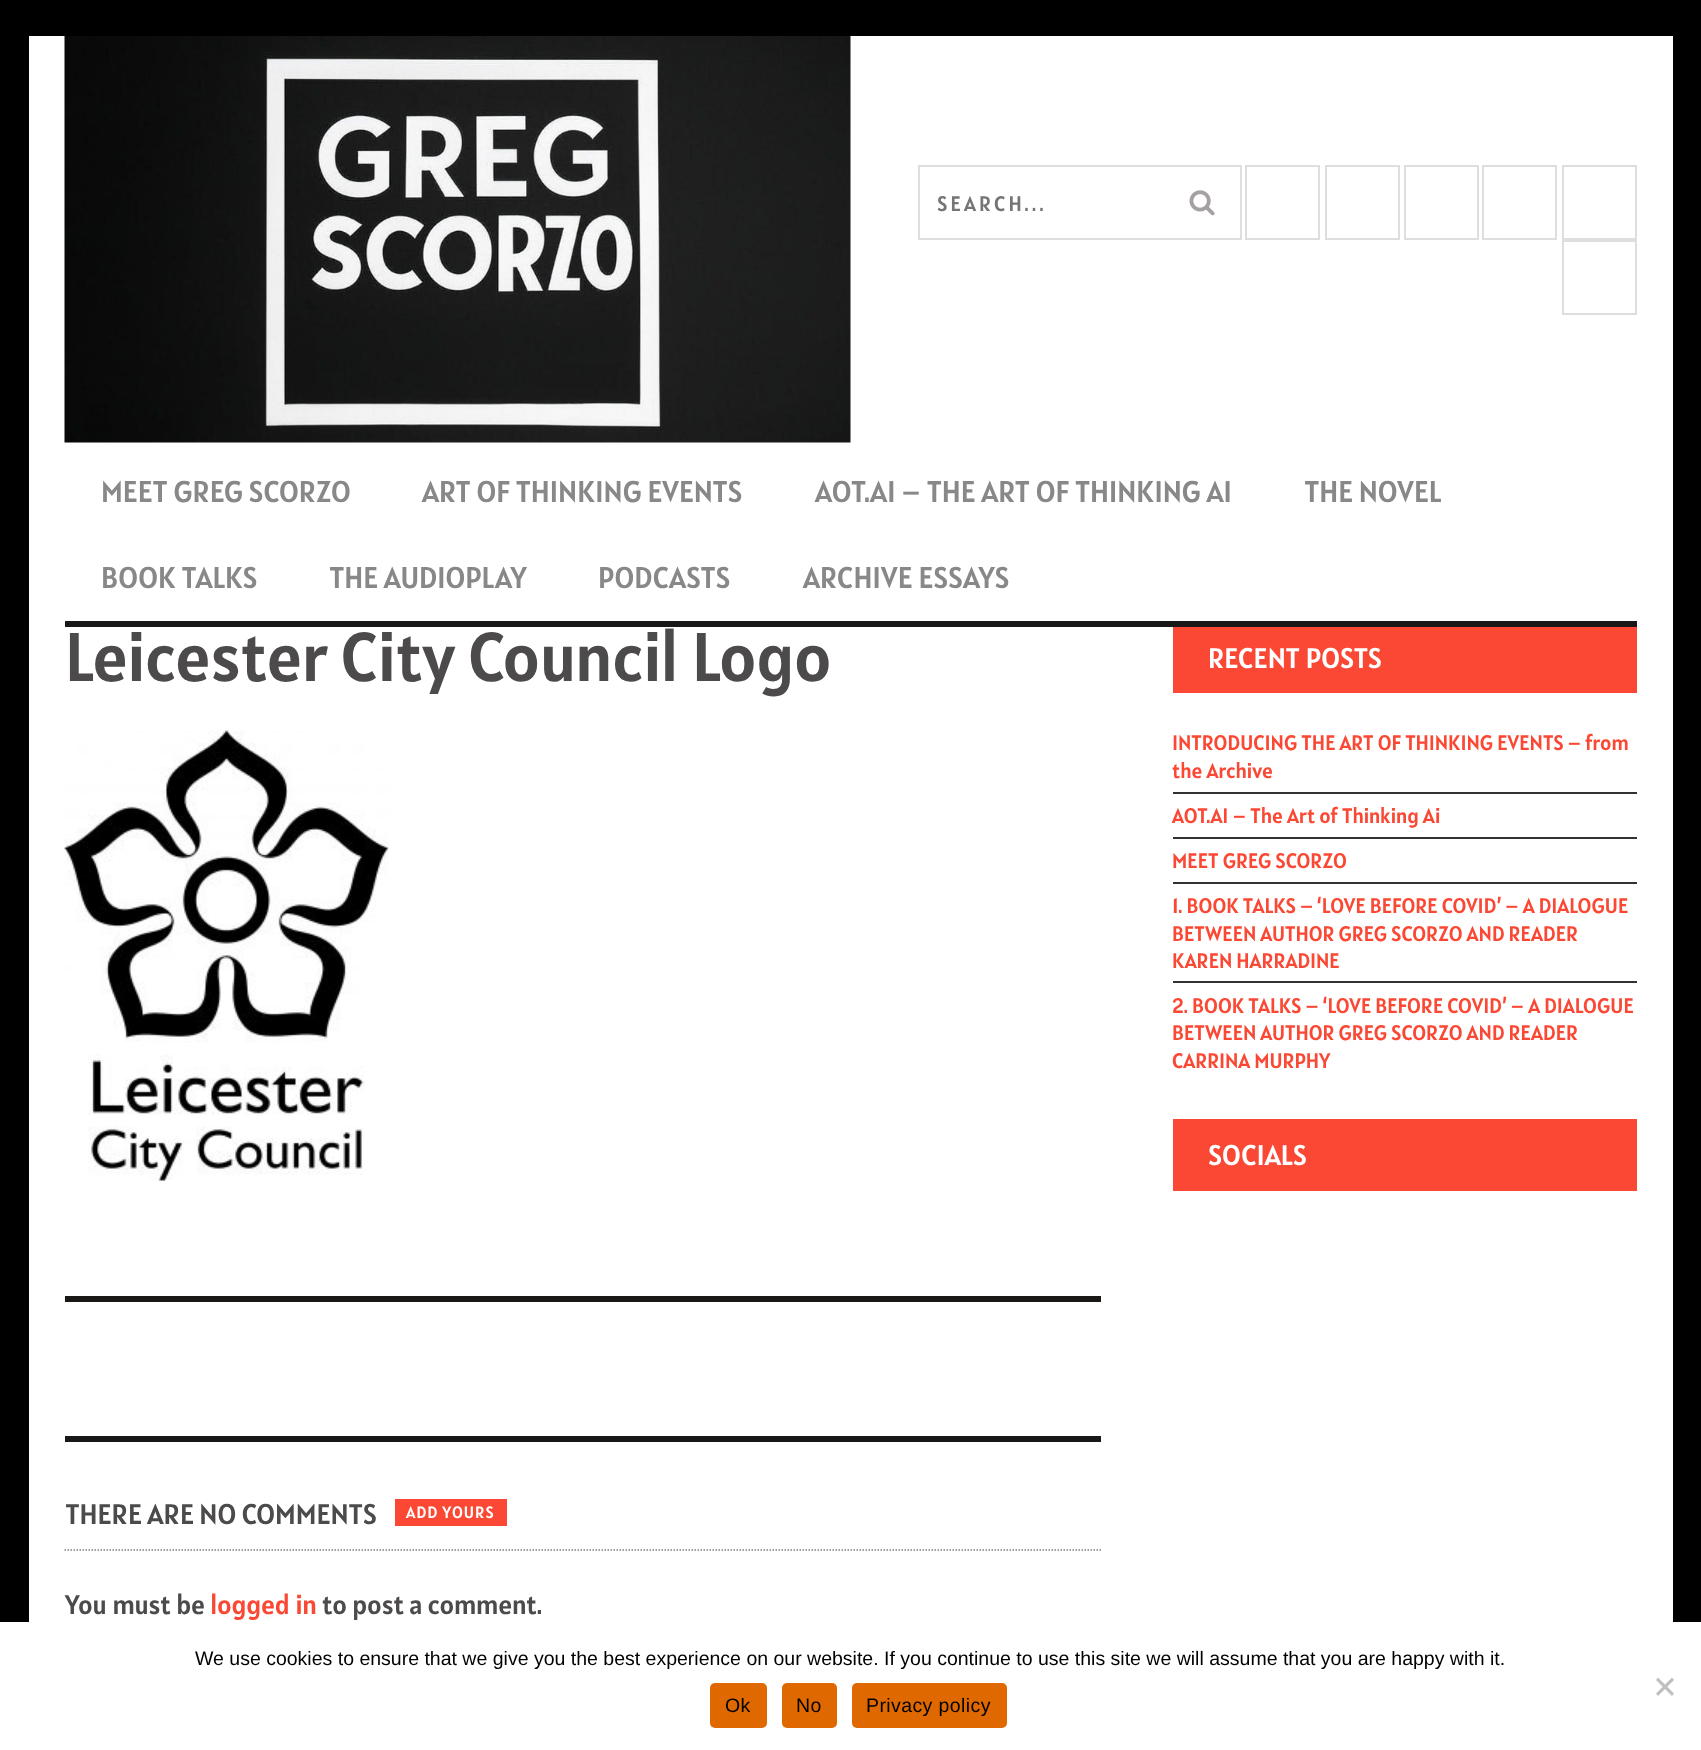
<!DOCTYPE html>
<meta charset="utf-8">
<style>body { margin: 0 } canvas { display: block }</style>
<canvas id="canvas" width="1701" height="1750"></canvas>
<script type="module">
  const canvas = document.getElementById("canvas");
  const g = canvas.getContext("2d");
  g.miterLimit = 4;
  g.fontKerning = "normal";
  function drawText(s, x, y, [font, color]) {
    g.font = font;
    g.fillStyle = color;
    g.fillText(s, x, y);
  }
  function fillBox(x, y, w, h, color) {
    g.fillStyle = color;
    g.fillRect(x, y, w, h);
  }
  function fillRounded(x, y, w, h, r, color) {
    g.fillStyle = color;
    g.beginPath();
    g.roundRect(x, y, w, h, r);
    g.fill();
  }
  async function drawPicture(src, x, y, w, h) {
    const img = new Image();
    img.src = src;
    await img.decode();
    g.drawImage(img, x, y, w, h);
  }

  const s1 = ["21px Alatsi", "#757575"];
  const s2 = ["30px Alatsi", "#888888"];
  const s3 = ["69px Alatsi", "#4C4A4A"];
  const s4 = ["28.5px Alatsi", "#FFFFFF"];
  const s5 = ["21px Alatsi", "#FB4834"];
  const s6 = ["28.5px Alatsi", "#4C4A4A"];
  const s7 = ["16.5px Alatsi", "#FFFFFF"];
  const s8 = ["27px Alatsi", "#4C4A4A"];
  const s9 = ["27px Alatsi", "#FB4834"];
  const s10 = ["19.5px Liberation Sans", "#000000"];

  fillBox(0, 0, 1701, 1750, "#000000");
  fillBox(29, 36, 1644, 1586, "#FFFFFF");
  await drawPicture("pic1.png", 64, 36, 787, 407);
  g.strokeStyle = "#DEDEDE";
  g.lineWidth = 2;
  g.strokeRect(919, 166, 322, 73);
  g.letterSpacing = "3px";
  drawText("SEARCH...", 937, 211, s1);
  await drawPicture("pic2.png", 1189, 190, 26, 26);
  g.strokeRect(1246, 166, 73, 73);
  g.strokeRect(1326, 166, 73, 73);
  g.strokeRect(1405, 166, 73, 73);
  g.strokeRect(1483, 166, 73, 73);
  g.strokeRect(1563, 166, 73, 73);
  g.strokeRect(1563, 241, 73, 73);
  fillBox(65, 621, 1572, 6, "#1A1717");
  g.letterSpacing = "0px";
  drawText("MEET GREG SCORZO", 101, 502, s2);
  drawText("ART OF THINKING EVENTS", 422, 502, s2);
  drawText("AOT.AI – THE ART OF THINKING AI", 815, 502, s2);
  drawText("THE NOVEL", 1304, 502, s2);
  drawText("BOOK TALKS", 101, 588, s2);
  drawText("THE AUDIOPLAY", 329, 588, s2);
  drawText("PODCASTS", 598, 588, s2);
  drawText("ARCHIVE ESSAYS", 803, 588, s2);
  drawText("Leicester City Council Logo", 65, 681, s3);
  fillBox(1173, 627, 464, 66, "#FB4834");
  drawText("RECENT POSTS", 1208, 668, s4);
  drawText("INTRODUCING THE ART OF THINKING EVENTS – from", 1172, 750, s5);
  drawText("the Archive", 1172, 778, s5);
  fillBox(1173, 792, 464, 2, "#333131");
  drawText("AOT.AI – The Art of Thinking Ai", 1172, 823, s5);
  fillBox(1173, 837, 464, 2, "#333131");
  drawText("MEET GREG SCORZO", 1172, 868, s5);
  fillBox(1173, 882, 464, 2, "#333131");
  drawText("1. BOOK TALKS – ‘LOVE BEFORE COVID’ – A DIALOGUE", 1172, 913, s5);
  drawText("BETWEEN AUTHOR GREG SCORZO AND READER", 1172, 941, s5);
  drawText("KAREN HARRADINE", 1172, 968, s5);
  fillBox(1173, 981, 464, 2, "#333131");
  drawText("2. BOOK TALKS – ‘LOVE BEFORE COVID’ – A DIALOGUE", 1172, 1013, s5);
  drawText("BETWEEN AUTHOR GREG SCORZO AND READER", 1172, 1040, s5);
  drawText("CARRINA MURPHY", 1172, 1068, s5);
  fillBox(1173, 1119, 464, 72, "#FB4834");
  drawText("SOCIALS", 1208, 1165, s4);
  await drawPicture("pic3.png", 64, 730, 325, 451);
  fillBox(65, 1296, 1036, 6, "#1A1717");
  fillBox(65, 1436, 1036, 6, "#1A1717");
  g.beginPath();
  g.moveTo(64.5, 1550);
  g.lineTo(1101, 1550);
  g.strokeStyle = "#807F7E";
  g.lineWidth = 1.5;
  g.setLineDash([1.5, 1.5]);
  g.stroke();
  drawText("THERE ARE NO COMMENTS", 65, 1524, s6);
  fillBox(395, 1499, 112, 27, "#FB4834");
  g.letterSpacing = "1px";
  drawText("ADD YOURS", 406, 1518, s7);
  g.letterSpacing = "0px";
  drawText("You must be", 65, 1614, s8);
  drawText("logged in", 210, 1614, s9);
  drawText("to post a comment.", 322, 1614, s8);
  fillBox(0, 1622, 1701, 128, "#FFFFFF");
  drawText("We use cookies to ensure that we give you the best experience on our website. If you continue to use this site we will assume that you are happy with it.", 195, 1665, s10);
  g.fillStyle = "#C0C0C0";
  g.beginPath();
  g.moveTo(1672, 1677.5);
  g.lineTo(1674, 1680);
  g.lineTo(1658, 1696);
  g.lineTo(1656, 1693.5);
  g.closePath();
  g.fill();
  g.beginPath();
  g.moveTo(1656, 1680);
  g.lineTo(1658, 1677.5);
  g.lineTo(1674, 1693.5);
  g.lineTo(1672, 1696);
  g.closePath();
  g.fill();
  fillRounded(710, 1683, 57, 45, 5, "#E06800");
  g.letterSpacing = "0.4px";
  drawText("Ok", 725, 1712, s10);
  fillRounded(782, 1683, 55, 45, 5, "#E06800");
  drawText("No", 796, 1712, s10);
  fillRounded(852, 1683, 155, 45, 5, "#E06800");
  drawText("Privacy policy", 866, 1712, s10);
</script>
